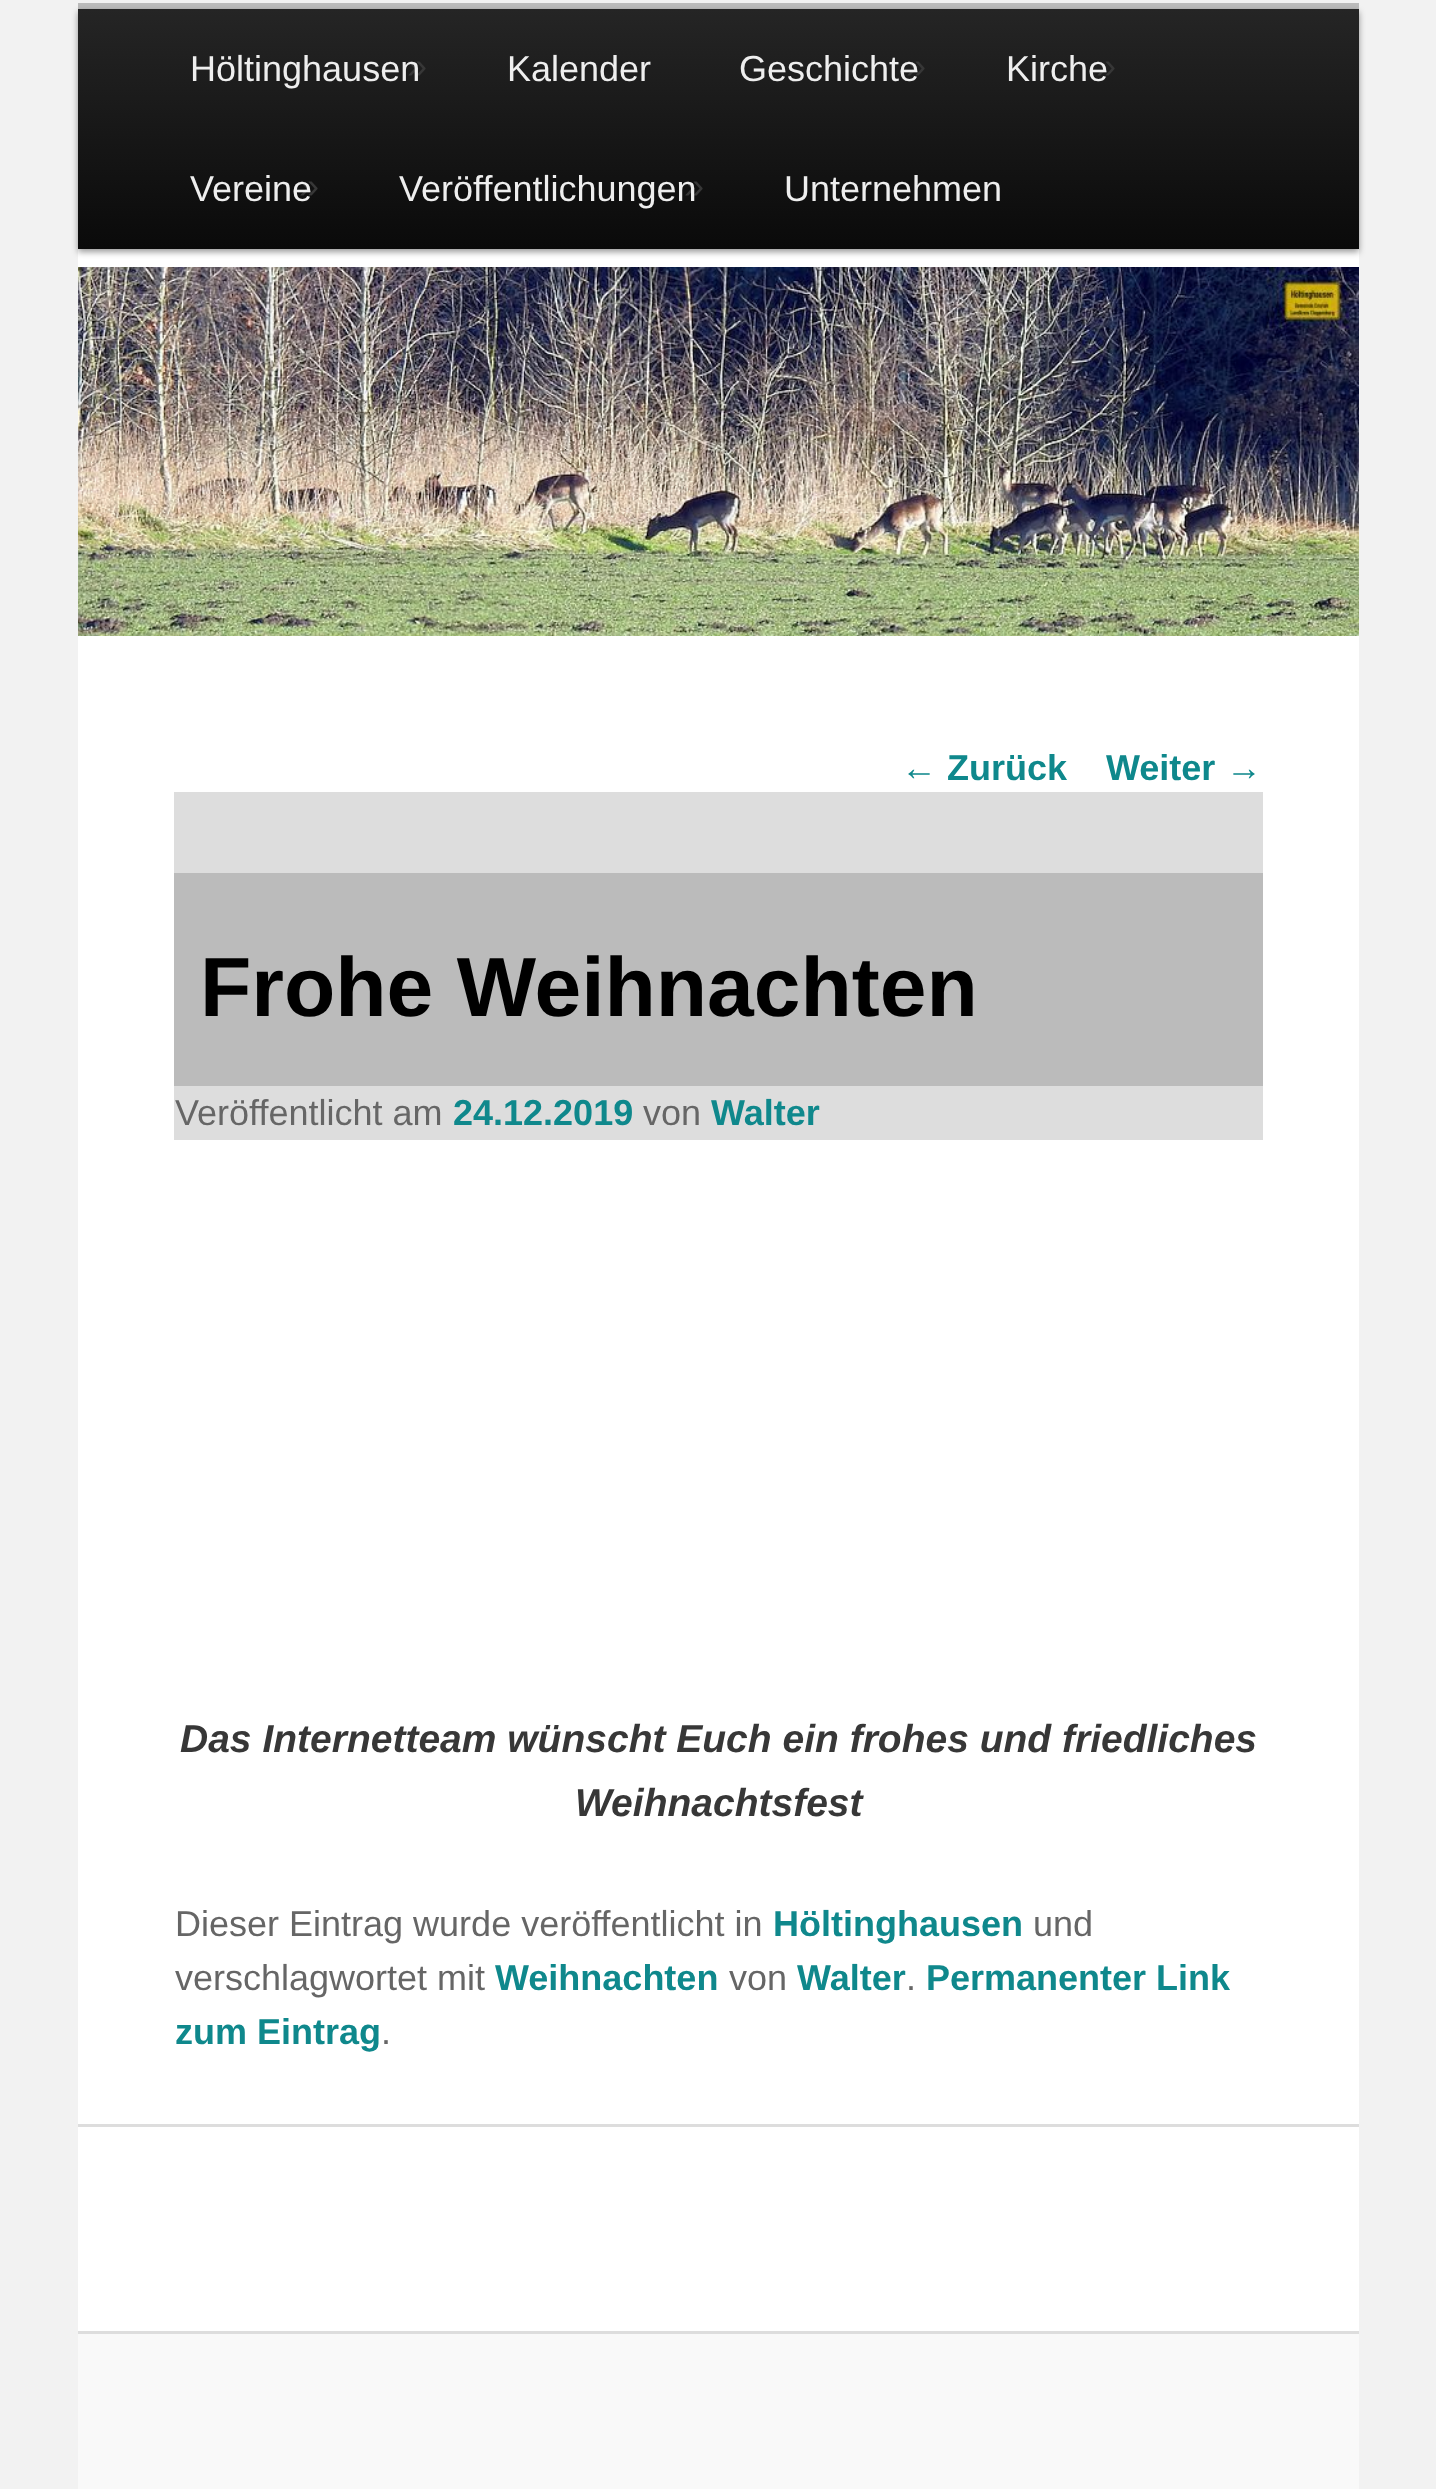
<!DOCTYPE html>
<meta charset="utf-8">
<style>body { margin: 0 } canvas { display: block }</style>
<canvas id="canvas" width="1436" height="2489"></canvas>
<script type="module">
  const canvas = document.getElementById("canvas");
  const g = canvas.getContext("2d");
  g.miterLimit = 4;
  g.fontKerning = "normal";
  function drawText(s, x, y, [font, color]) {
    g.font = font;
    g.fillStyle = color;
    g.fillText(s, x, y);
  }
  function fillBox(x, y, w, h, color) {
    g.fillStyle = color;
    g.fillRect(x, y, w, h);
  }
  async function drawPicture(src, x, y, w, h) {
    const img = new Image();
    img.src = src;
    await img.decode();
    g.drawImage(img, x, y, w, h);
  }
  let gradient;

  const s1 = ["36px Liberation Sans", "#373737"];
  const s2 = ["36px Liberation Sans", "#EEEEEE"];
  const s3 = ["36px Liberation Sans", "#0F888C"];
  const s4 = ["bold 36px Liberation Sans", "#0F888C"];
  const s5 = ["bold 84px Liberation Sans", "#000000"];
  const s6 = ["36px Liberation Sans", "#666666"];
  const s7 = ["italic bold 39px Liberation Sans", "#373737"];

  fillBox(0, 0, 1436, 2489, "#F2F2F2");
  fillBox(78, 249, 1281, 2082, "#FFFFFF");
  fillBox(78, 3, 1281, 6, "#BBBBBB");
  g.fillStyle = "rgba(0, 0, 0, 0.4)";
  g.filter = "blur(3px)";
  g.beginPath();
  g.rect(78, 12, 1281, 240);
  g.fill();
  g.filter = "none";
  gradient = g.createLinearGradient(719, 9, 719, 249);
  gradient.addColorStop(0, "#252525");
  gradient.addColorStop(1, "#0A0A0A");
  g.fillStyle = gradient;
  g.fillRect(78, 9, 1281, 240);
  drawText("»", 407, 78, s1);
  drawText("Höltinghausen", 190, 81, s2);
  drawText("Kalender", 507, 81, s2);
  drawText("»", 906, 78, s1);
  drawText("Geschichte", 739, 81, s2);
  drawText("»", 1096, 78, s1);
  drawText("Kirche", 1006, 81, s2);
  drawText("»", 299, 198, s1);
  drawText("Vereine", 190, 201, s2);
  drawText("»", 684, 198, s1);
  drawText("Veröffentlichungen", 399, 201, s2);
  drawText("Unternehmen", 784, 201, s2);
  await drawPicture("pic1.png", 78, 267, 1281, 369);
  drawText("←", 901, 780, s3);
  drawText("Zurück", 947, 780, s4);
  drawText("Weiter", 1106, 780, s4);
  drawText("→", 1226, 780, s3);
  fillBox(174, 792, 1089, 348, "#DDDDDD");
  fillBox(174, 873, 1089, 213, "#BBBBBB");
  drawText("Frohe Weihnachten", 200, 1016, s5);
  drawText("Veröffentlicht am", 175, 1125, s6);
  drawText("24.12.2019", 453, 1125, s4);
  drawText("von", 643, 1125, s6);
  drawText("Walter", 711, 1125, s4);
  drawText("Das Internetteam wünscht Euch ein frohes und friedliches", 180, 1752, s7);
  drawText("Weihnachtsfest", 575, 1816, s7);
  drawText("Dieser Eintrag wurde veröffentlicht in", 175, 1936, s6);
  drawText("Höltinghausen", 773, 1936, s4);
  drawText("und", 1033, 1936, s6);
  drawText("verschlagwortet mit", 175, 1990, s6);
  drawText("Weihnachten", 495, 1990, s4);
  drawText("von", 729, 1990, s6);
  drawText("Walter", 797, 1990, s4);
  drawText(".", 906, 1990, s6);
  drawText("Permanenter Link", 926, 1990, s4);
  drawText("zum Eintrag", 175, 2044, s4);
  drawText(".", 381, 2044, s6);
  fillBox(78, 2124, 1281, 3, "#DDDDDD");
  fillBox(78, 2334, 1281, 155, "#F9F9F9");
  fillBox(78, 2331, 1281, 3, "#DDDDDD");
</script>
